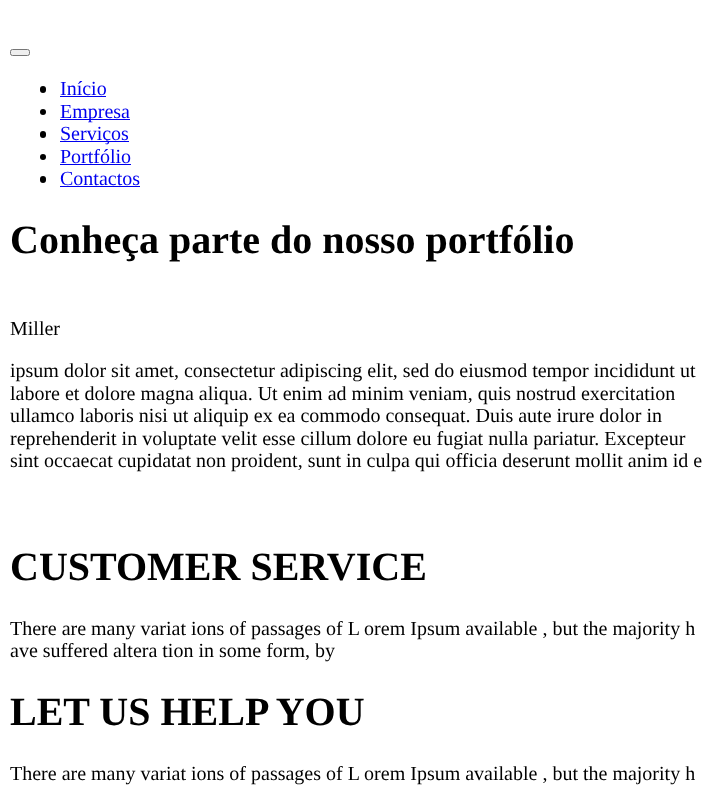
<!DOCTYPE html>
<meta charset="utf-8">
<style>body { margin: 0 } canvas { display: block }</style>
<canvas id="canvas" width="715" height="793"></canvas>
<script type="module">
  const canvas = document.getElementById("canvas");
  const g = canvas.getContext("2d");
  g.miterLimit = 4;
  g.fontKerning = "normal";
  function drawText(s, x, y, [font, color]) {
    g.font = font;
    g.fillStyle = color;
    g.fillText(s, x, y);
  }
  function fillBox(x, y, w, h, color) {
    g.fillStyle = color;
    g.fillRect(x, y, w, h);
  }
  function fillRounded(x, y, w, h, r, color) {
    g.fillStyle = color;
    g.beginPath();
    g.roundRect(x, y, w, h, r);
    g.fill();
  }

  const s1 = ["20px Liberation Serif", "#0000EE"];
  const s2 = ["bold 40px Liberation Serif", "#000000"];
  const s3 = ["20px Liberation Serif", "#000000"];

  fillBox(0, 0, 715, 793, "#FFFFFF");
  g.fillStyle = "#EFEFEF";
  g.beginPath();
  g.roundRect(10.5, 49.5, 19, 6, 2);
  g.fill();
  g.strokeStyle = "#767676";
  g.stroke();
  fillRounded(40, 86, 6, 7, 3, "#000000");
  drawText("Início", 60, 95, s1);
  fillBox(60, 96, 46, 1, "#0000EE");
  g.fillStyle = "#000000";
  g.beginPath();
  g.arc(43, 112, 3, 0, Math.PI * 2);
  g.fill();
  fillBox(60, 119, 70, 1, "#0000EE");
  drawText("Empresa", 60, 118, s1);
  fillRounded(40, 131, 6, 7, 3, "#000000");
  fillBox(60, 141, 69, 1, "#0000EE");
  drawText("Serviços", 60, 140, s1);
  g.fillStyle = "#000000";
  g.beginPath();
  g.arc(43, 157, 3, 0, Math.PI * 2);
  g.fill();
  drawText("Portfólio", 60, 163, s1);
  fillBox(60, 164, 71, 1, "#0000EE");
  fillRounded(40, 176, 6, 7, 3, "#000000");
  drawText("Contactos", 60, 185, s1);
  fillBox(60, 186, 80, 1, "#0000EE");
  drawText("Conheça parte do nosso portfólio", 10, 253, s2);
  drawText("Miller", 10, 335, s3);
  drawText("ipsum dolor sit amet, consectetur adipiscing elit, sed do eiusmod tempor incididunt ut", 10, 377, s3);
  drawText("labore et dolore magna aliqua. Ut enim ad minim veniam, quis nostrud exercitation", 10, 400, s3);
  drawText("ullamco laboris nisi ut aliquip ex ea commodo consequat. Duis aute irure dolor in", 10, 422, s3);
  drawText("reprehenderit in voluptate velit esse cillum dolore eu fugiat nulla pariatur. Excepteur", 10, 445, s3);
  drawText("sint occaecat cupidatat non proident, sunt in culpa qui officia deserunt mollit anim id e", 10, 467, s3);
  drawText("CUSTOMER SERVICE", 10, 580, s2);
  drawText("There are many variat ions of passages of L orem Ipsum available , but the majority h", 10, 635, s3);
  drawText("ave suffered altera tion in some form, by", 10, 657, s3);
  drawText("LET US HELP YOU", 10, 725, s2);
  drawText("There are many variat ions of passages of L orem Ipsum available , but the majority h", 10, 780, s3);
</script>
